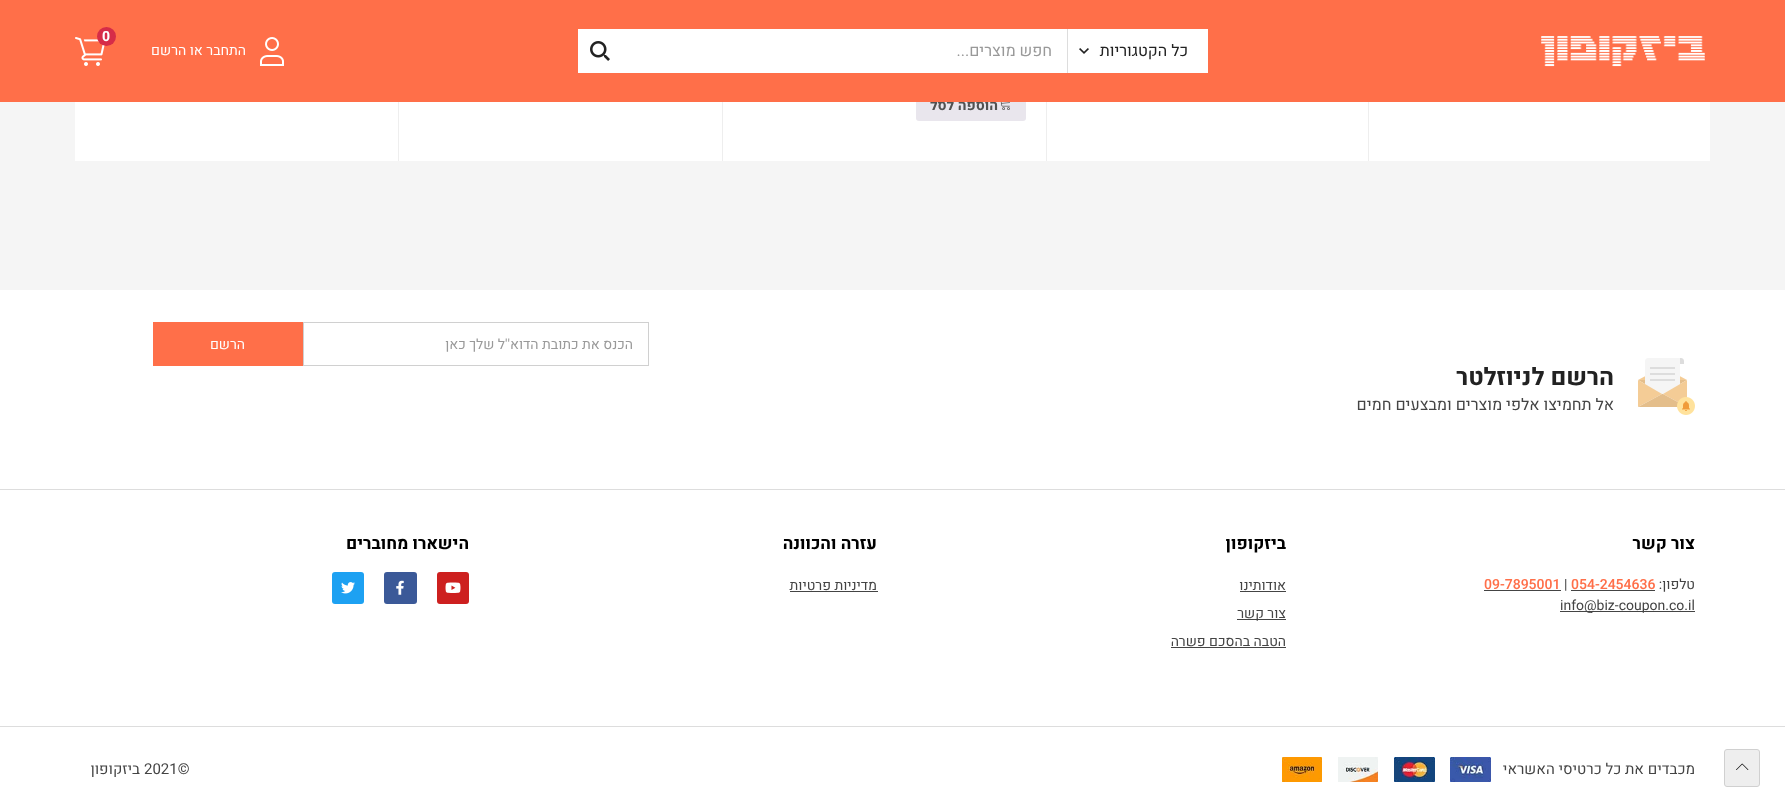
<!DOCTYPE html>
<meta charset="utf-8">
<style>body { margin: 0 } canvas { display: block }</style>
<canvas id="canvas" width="1785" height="812"></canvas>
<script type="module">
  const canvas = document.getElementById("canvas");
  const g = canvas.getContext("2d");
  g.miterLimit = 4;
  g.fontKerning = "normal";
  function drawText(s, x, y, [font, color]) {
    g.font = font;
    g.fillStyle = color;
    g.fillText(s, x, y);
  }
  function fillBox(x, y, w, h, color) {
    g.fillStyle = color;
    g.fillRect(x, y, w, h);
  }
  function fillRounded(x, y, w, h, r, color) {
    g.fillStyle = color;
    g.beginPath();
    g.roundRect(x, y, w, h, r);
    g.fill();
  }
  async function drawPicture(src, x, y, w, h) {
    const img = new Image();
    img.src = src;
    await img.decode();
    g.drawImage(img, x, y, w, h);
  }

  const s1 = ["bold 14px Heebo", "#515151"];
  const s2 = ["16px Heebo", "#222222"];
  const s3 = ["16px Heebo", "#999999"];
  const s4 = ["bold 14px Heebo", "#FFFFFF"];
  const s5 = ["14px Heebo", "#FFFFFF"];
  const s6 = ["14px Heebo", "#999999"];
  const s7 = ["bold 24px Heebo", "#222222"];
  const s8 = ["16px Heebo", "#444444"];
  const s9 = ["bold 17px Heebo", "#000000"];
  const s10 = ["14px Heebo", "#444444"];
  const s11 = ["500 14px Heebo", "#FF6F49"];
  const s12 = ["15px Heebo", "#444444"];

  fillBox(0, 0, 1785, 812, "#F5F5F5");
  fillBox(75, 102, 1635, 59, "#FFFFFF");
  g.save();
  g.beginPath();
  g.rect(75, 0, 1294, 161);
  g.clip();
  g.strokeStyle = "#EEEEEE";
  g.strokeRect(721.5, -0.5, 325, 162);
  g.restore();
  fillRounded(916, 87, 110, 34, 3, "#E9E6ED");
  g.direction = "rtl";
  drawText("הוספה לסל", 998, 110, s1);
  g.save();
  g.beginPath();
  g.rect(75, 0, 1294, 161);
  g.clip();
  g.strokeStyle = "#EEEEEE";
  g.strokeRect(398.5, -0.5, 324, 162);
  g.restore();
  fillBox(0, 0, 1785, 102, "#FF6F49");
  await drawPicture("pic1.png", 1541, 36, 164, 31);
  fillBox(578, 29, 630, 44, "#FFFFFF");
  fillBox(1067, 29, 1, 44, "#DDDDDD");
  drawText("כל הקטגוריות", 1188, 56, s2);
  await drawPicture("pic2.png", 1079, 48, 10, 6);
  drawText("חפש מוצרים...", 1052, 56, s3);
  await drawPicture("pic3.png", 590, 41, 20, 20);
  await drawPicture("pic4.png", 75, 37, 30, 29);
  g.fillStyle = "#D62C48";
  g.beginPath();
  g.arc(106.5, 36.5, 9.5, 0, Math.PI * 2);
  g.fill();
  g.direction = "ltr";
  drawText("0", 102, 41, s4);
  await drawPicture("pic5.png", 260, 37, 24, 29);
  g.direction = "rtl";
  drawText("התחבר או הרשם", 246, 55, s5);
  fillBox(1368, 102, 1, 59, "#EEEEEE");
  await drawPicture("pic6.png", 1000, 102, 10, 8);
  fillBox(721, 102, 1, 59, "#FFFFFF");
  fillBox(0, 727, 1785, 85, "#FFFFFF");
  g.fillStyle = "#EEEEEE";
  g.beginPath();
  g.roundRect(1724.5, 749.5, 35, 37, 2.5);
  g.fill();
  g.strokeStyle = "#D0D0D0";
  g.stroke();
  await drawPicture("pic7.png", 1736, 763, 13, 7);
  fillBox(0, 290, 1785, 199, "#FFFFFF");
  fillBox(0, 489, 1785, 1, "#DDDDDD");
  g.strokeRect(303.5, 322.5, 345, 43);
  drawText("הכנס את כתובת הדוא''ל שלך כאן", 633, 349, s6);
  fillBox(153, 322, 150, 44, "#FF6F49");
  drawText("הרשם", 245, 349, s5);
  await drawPicture("pic8.png", 1638, 358, 57, 57);
  drawText("הרשם לניוזלטר", 1614, 385, s7);
  drawText("אל תחמיצו אלפי מוצרים ומבצעים חמים", 1614, 410, s8);
  fillBox(0, 490, 1785, 236, "#FFFFFF");
  fillBox(0, 726, 1785, 1, "#DDDDDD");
  drawText("צור קשר", 1695, 549, s9);
  drawText("טלפון:", 1695, 589, s10);
  g.direction = "ltr";
  drawText("054-2454636", 1571, 589, s11);
  fillBox(1571, 590, 84, 1, "#444444");
  drawText("|", 1564, 589, s10);
  drawText("09-7895001", 1484, 589, s11);
  fillBox(1484, 590, 77, 1, "#444444");
  fillBox(1560, 611, 135, 1, "#444444");
  drawText("info@biz-coupon.co.il", 1560, 610, s10);
  g.direction = "rtl";
  drawText("ביזקופון", 1286, 549, s9);
  drawText("אודותינו", 1286, 590, s10);
  fillBox(1240, 591, 46, 1, "#444444");
  fillBox(1237, 619, 49, 1, "#444444");
  drawText("צור קשר", 1286, 618, s10);
  drawText("הטבה בהסכם פשרה", 1286, 646, s10);
  fillBox(1171, 647, 115, 1, "#444444");
  drawText("עזרה והכוונה", 877, 549, s9);
  drawText("מדיניות פרטיות", 877, 590, s10);
  fillBox(790, 591, 88, 1, "#444444");
  drawText("הישארו מחוברים", 469, 549, s9);
  fillRounded(437, 572, 32, 32, 3, "#CD201F");
  await drawPicture("pic9.png", 445, 582, 16, 11);
  fillRounded(384, 572, 33, 32, 3, "#3B5998");
  await drawPicture("pic10.png", 396, 580, 8, 15);
  fillRounded(332, 572, 32, 32, 3, "#1DA1F2");
  await drawPicture("pic11.png", 341, 582, 14, 12);
  drawText("מכבדים את כל כרטיסי האשראי", 1695, 774, s12);
  await drawPicture("pic12.png", 1450, 757, 41, 25);
  await drawPicture("pic13.png", 1394, 757, 41, 25);
  await drawPicture("pic14.png", 1338, 757, 40, 25);
  await drawPicture("pic15.png", 1282, 757, 40, 25);
  g.direction = "ltr";
  drawText("2021©", 144, 774, s12);
  g.direction = "rtl";
  drawText("ביזקופון", 140, 774, s12);
</script>
